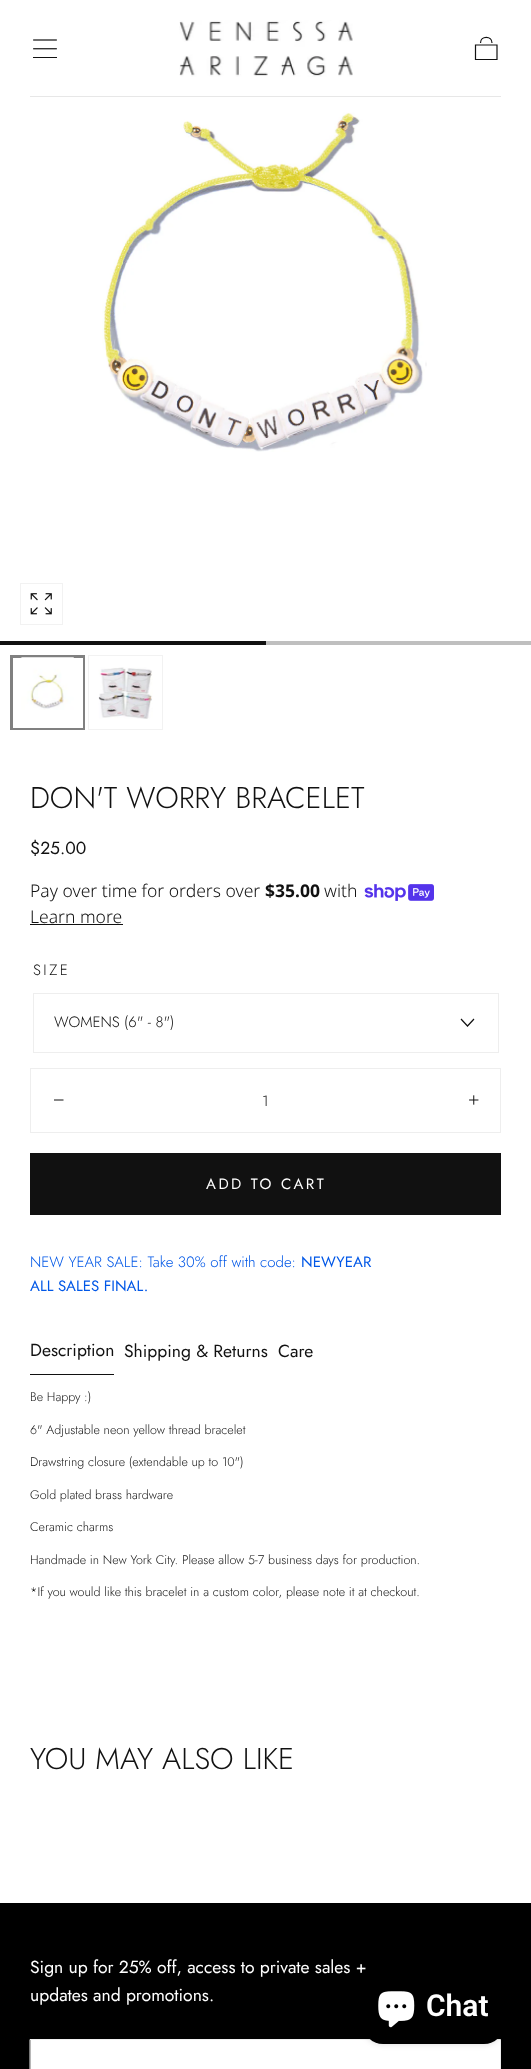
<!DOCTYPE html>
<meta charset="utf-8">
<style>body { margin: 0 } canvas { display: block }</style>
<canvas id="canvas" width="531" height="2069"></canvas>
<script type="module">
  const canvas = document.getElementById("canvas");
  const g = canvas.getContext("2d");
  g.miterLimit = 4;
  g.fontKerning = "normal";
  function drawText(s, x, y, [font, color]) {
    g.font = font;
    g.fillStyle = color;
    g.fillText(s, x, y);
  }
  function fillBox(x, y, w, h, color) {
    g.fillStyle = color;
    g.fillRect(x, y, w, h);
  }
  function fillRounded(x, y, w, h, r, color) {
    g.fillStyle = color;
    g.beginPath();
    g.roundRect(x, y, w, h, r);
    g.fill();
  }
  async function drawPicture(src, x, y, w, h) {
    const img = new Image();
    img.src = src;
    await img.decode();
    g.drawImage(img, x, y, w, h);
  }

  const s1 = ["300 30px Jost", "#111111"];
  const s2 = ["17.5px Jost", "#111111"];
  const s3 = ["300 17.5px Noto Sans", "#111111"];
  const s4 = ["bold 17.5px Noto Sans", "#111111"];
  const s5 = ["300 15px Jost", "#111111"];
  const s6 = ["15px Jost", "#FFFFFF"];
  const s7 = ["300 15px Jost", "#0057E7"];
  const s8 = ["15px Jost", "#0057E7"];
  const s9 = ["300 12.5px Jost", "#111111"];
  const s10 = ["17.5px Jost", "#FFFFFF"];
  const s11 = ["600 30px Roboto", "#FFFFFF"];

  fillBox(0, 0, 531, 2069, "#FFFFFF");
  await drawPicture("pic1.png", 33, 39, 24, 19);
  await drawPicture("pic2.png", 179, 20, 174, 57);
  g.beginPath();
  g.moveTo(497, 59.5);
  g.lineTo(475.5, 59.5);
  g.lineTo(475.5, 45);
  g.lineTo(497, 45);
  g.closePath();
  g.moveTo(492, 43);
  g.bezierCurveTo(492, 35.5, 480.5, 35.5, 480.5, 43);
  g.strokeStyle = "#111111";
  g.lineWidth = 1.2;
  g.stroke();
  fillBox(30, 96, 471, 1, "#E7E7E7");
  await drawPicture("pic3.png", 102, 112, 325, 340);
  g.strokeStyle = "#F2F2F2";
  g.lineWidth = 1;
  g.strokeRect(20.5, 583.5, 42, 41);
  await drawPicture("pic4.png", 30, 593, 22, 22);
  fillBox(266, 641, 265, 4, "#BFBFBF");
  fillBox(0, 641, 266, 4, "#111111");
  g.strokeStyle = "#808080";
  g.lineWidth = 3;
  g.strokeRect(11.5, 656.5, 72, 72);
  fillBox(13, 658, 70, 70, "#FFFFFF");
  await drawPicture("pic5.png", 20, 657, 54, 53);
  g.strokeStyle = "#F2F2F2";
  g.lineWidth = 1;
  g.strokeRect(88.5, 655.5, 74, 74);
  await drawPicture("pic6.png", 98, 667, 55, 52);
  drawText("DON'T WORRY BRACELET", 30, 808, s1);
  drawText("$25.00", 30, 854, s2);
  drawText("Pay over time for orders over", 30, 897, s3);
  drawText("$35.00", 265, 897, s4);
  drawText("with", 324, 897, s3);
  await drawPicture("pic7.png", 364, 884, 70, 17);
  drawText("Learn more", 30, 923, s3);
  fillBox(30, 924, 93, 1, "#111111");
  g.letterSpacing = "2.5px";
  drawText("SIZE", 33, 975, s5);
  g.strokeStyle = "#EEEEEE";
  g.strokeRect(33.5, 993.5, 465, 59);
  g.letterSpacing = "0px";
  drawText("WOMENS (6\" - 8\")", 54, 1027, s5);
  g.beginPath();
  g.moveTo(474, 1019);
  g.lineTo(467.5, 1026);
  g.lineTo(461, 1019);
  g.strokeStyle = "#111111";
  g.lineWidth = 1.2;
  g.stroke();
  g.strokeStyle = "#EEEEEE";
  g.lineWidth = 1;
  g.strokeRect(30.5, 1068.5, 470, 64);
  g.beginPath();
  g.moveTo(54.5, 1100);
  g.lineTo(63, 1100);
  g.strokeStyle = "#111111";
  g.lineCap = "square";
  g.stroke();
  drawText("1", 262, 1106, s5);
  await drawPicture("pic8.png", 469, 1095, 10, 10);
  fillBox(30, 1153, 471, 62, "#111111");
  g.letterSpacing = "2.5px";
  drawText("ADD TO CART", 206, 1189, s6);
  g.letterSpacing = "0px";
  drawText("NEW YEAR SALE: Take 30% off with code:", 30, 1267, s7);
  drawText("NEWYEAR", 301, 1267, s8);
  drawText("ALL SALES FINAL.", 30, 1291, s8);
  fillBox(30, 1374, 84, 1, "#111111");
  drawText("Description", 30, 1356, s2);
  drawText("Shipping & Returns", 124, 1357, s2);
  drawText("Care", 278, 1357, s2);
  drawText("Be Happy :)", 30, 1401, s9);
  drawText("6\" Adjustable neon yellow thread bracelet", 30, 1434, s9);
  drawText("Drawstring closure (extendable up to 10\")", 30, 1466, s9);
  drawText("Gold plated brass hardware", 30, 1499, s9);
  drawText("Ceramic charms", 30, 1531, s9);
  drawText("Handmade in New York City. Please allow 5-7 business days for production.", 30, 1564, s9);
  drawText("*If you would like this bracelet in a custom color, please note it at checkout.", 30, 1596, s9);
  drawText("YOU MAY ALSO LIKE", 30, 1769, s1);
  fillBox(0, 1903, 531, 166, "#000000");
  drawText("Sign up for 25% off, access to private sales +", 30, 1973, s10);
  drawText("updates and promotions.", 30, 2001, s10);
  g.beginPath();
  g.rect(30.5, 2039.5, 470, 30);
  g.fill();
  g.strokeStyle = "#EEEEEE";
  g.stroke();
  g.fillStyle = "rgba(0, 0, 0, 0.15)";
  g.filter = "blur(3px)";
  g.beginPath();
  g.roundRect(363, 1969, 141, 75, 20);
  g.fill();
  g.filter = "none";
  fillRounded(363, 1969, 141, 75, 20, "#000000");
  await drawPicture("pic9.png", 378, 1991, 37, 37);
  drawText("Chat", 426, 2016, s11);
</script>
